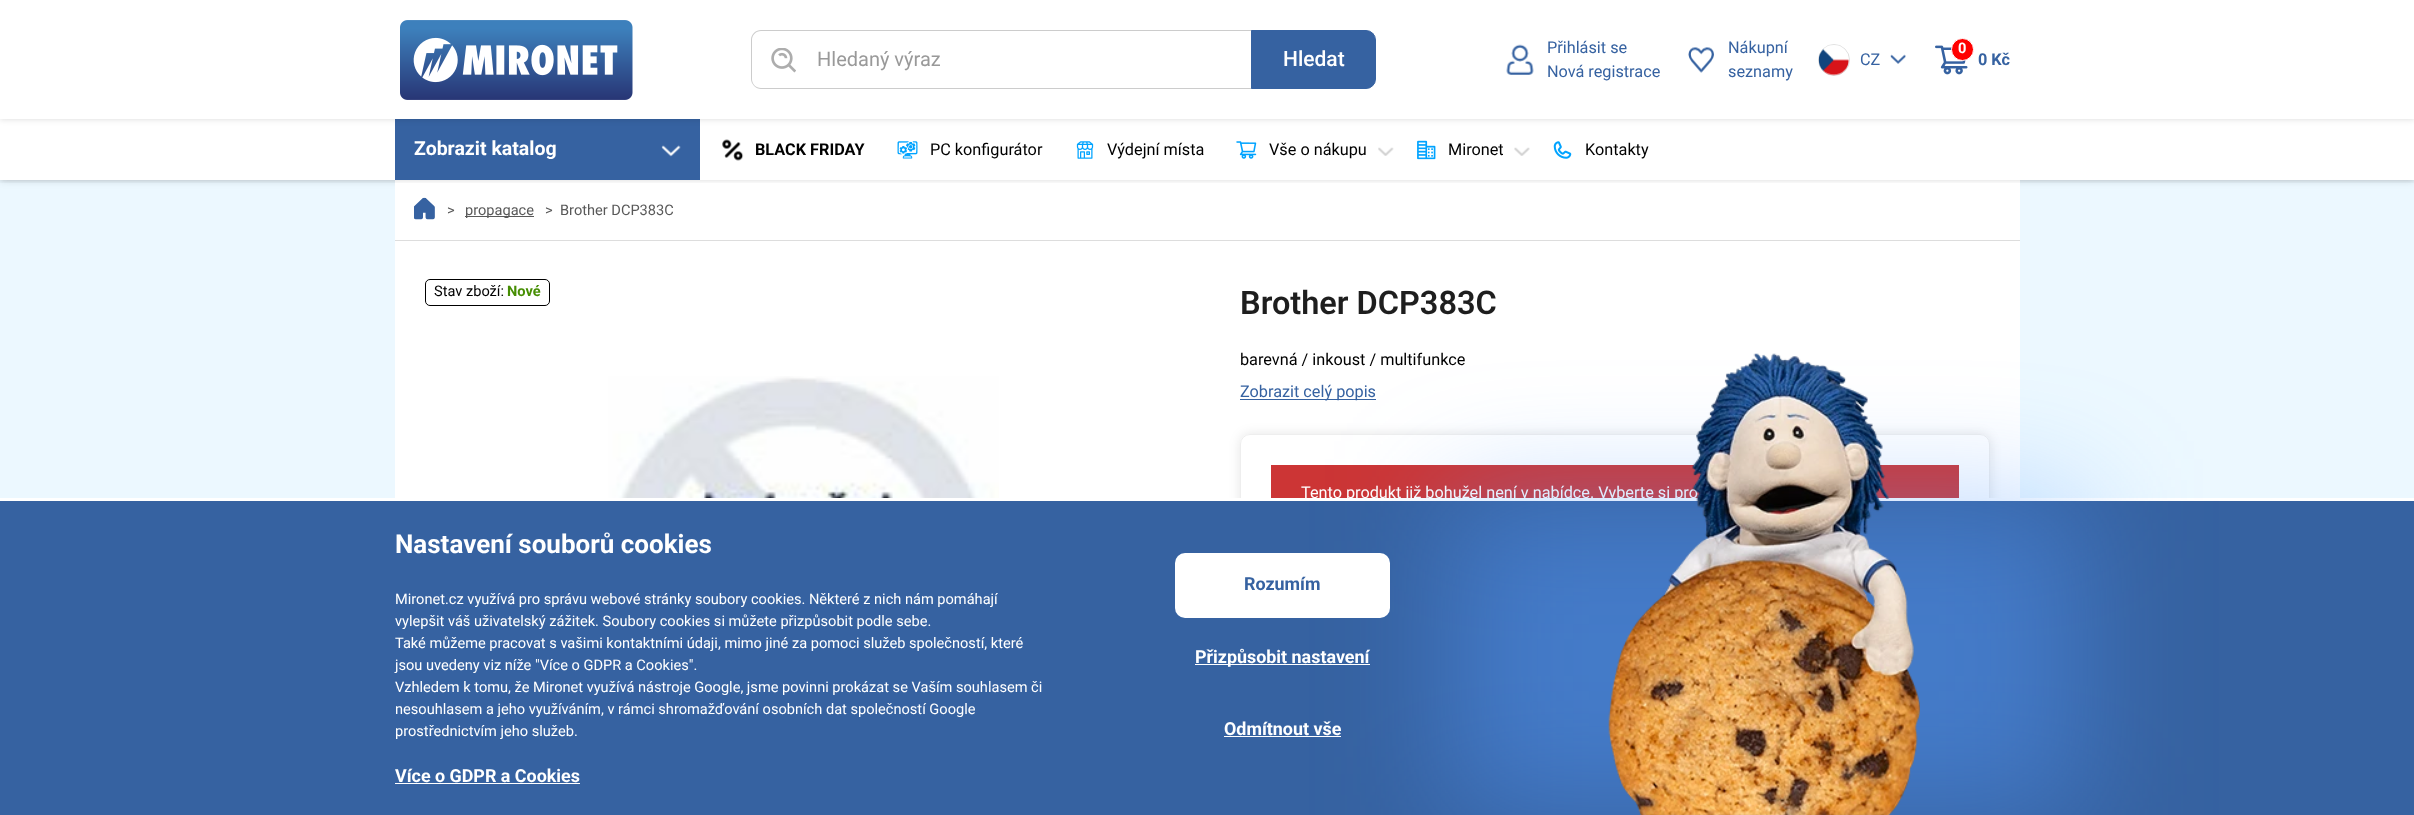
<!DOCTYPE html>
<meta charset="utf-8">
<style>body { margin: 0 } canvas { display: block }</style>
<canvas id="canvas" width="2414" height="815"></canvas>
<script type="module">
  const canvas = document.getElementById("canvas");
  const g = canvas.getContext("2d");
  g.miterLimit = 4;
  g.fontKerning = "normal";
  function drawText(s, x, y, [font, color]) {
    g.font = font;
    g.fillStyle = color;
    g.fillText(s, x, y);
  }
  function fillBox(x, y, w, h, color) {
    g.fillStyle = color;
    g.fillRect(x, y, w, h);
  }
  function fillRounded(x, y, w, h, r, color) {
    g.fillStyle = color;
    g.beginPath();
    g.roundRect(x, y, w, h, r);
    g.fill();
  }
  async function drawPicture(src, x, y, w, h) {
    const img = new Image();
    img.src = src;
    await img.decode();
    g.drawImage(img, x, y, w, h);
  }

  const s1 = ["20px Roboto", "#999999"];
  const s2 = ["500 21px Roboto", "#FFFFFF"];
  const s3 = ["16.25px Roboto", "#3662A1"];
  const s4 = ["bold 14.6px Roboto", "#FFFFFF"];
  const s5 = ["bold 16.25px Roboto", "#3662A1"];
  const s6 = ["bold 19.5px Roboto", "#FFFFFF"];
  const s7 = ["bold 16.25px Roboto", "#000000"];
  const s8 = ["16.25px Roboto", "#000000"];
  const s9 = ["14.6px Roboto", "#595959"];
  const s10 = ["14.6px Roboto", "#000000"];
  const s11 = ["bold 14.6px Roboto", "#468E03"];
  const s12 = ["600 32.5px Roboto", "#1E1E1E"];
  const s13 = ["16.25px Roboto", "#FFFFFF"];
  const s14 = ["bold 26px Roboto", "#FFFFFF"];
  const s15 = ["14.6px Roboto", "#FFFFFF"];
  const s16 = ["bold 17.9px Roboto", "#FFFFFF"];
  const s17 = ["bold 17.9px Roboto", "#3662A1"];

  fillBox(0, 0, 2414, 815, "#ECF8FF");
  g.fillStyle = "rgba(0, 0, 0, 0.15)";
  g.filter = "blur(4px)";
  g.beginPath();
  g.rect(0, 0, 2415, 180);
  g.fill();
  g.filter = "none";
  fillBox(0, 119, 2414, 61, "#FFFFFF");
  fillBox(395, 180, 1625, 60, "#FFFFFF");
  g.save();
  g.beginPath();
  g.rect(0, 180, 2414, 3);
  g.clip();
  g.fillStyle = "rgba(0, 0, 0, 0.15)";
  g.filter = "blur(3px)";
  g.beginPath();
  g.rect(0, 119, 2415, 61);
  g.fill();
  g.filter = "none";
  g.restore();
  fillBox(395, 119, 305, 61, "#3662A1");
  g.fillStyle = "rgba(0, 0, 0, 0.15)";
  g.filter = "blur(3px)";
  g.beginPath();
  g.rect(0, 0, 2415, 119);
  g.fill();
  g.filter = "none";
  fillBox(0, 0, 2414, 119, "#FFFFFF");
  await drawPicture("pic1.png", 400, 20, 233, 80);
  g.fillStyle = "#CCCCCC";
  g.beginPath();
  g.moveTo(761, 30);
  g.lineTo(1252, 30);
  g.lineTo(1252, 89);
  g.lineTo(761, 89);
  g.bezierCurveTo(756, 89, 751, 84, 751, 79);
  g.lineTo(751, 40);
  g.bezierCurveTo(751, 34, 756, 30, 761, 30);
  g.closePath();
  g.moveTo(761, 31);
  g.lineTo(1252, 31);
  g.lineTo(1252, 88);
  g.lineTo(761, 88);
  g.bezierCurveTo(756, 88, 752, 84, 752, 79);
  g.lineTo(752, 40);
  g.bezierCurveTo(752, 35, 756, 31, 761, 31);
  g.closePath();
  g.fill("evenodd");
  await drawPicture("pic2.png", 771, 48, 25, 25);
  drawText("Hledaný výraz", 817, 66, s1);
  g.fillStyle = "#3662A1";
  g.beginPath();
  g.roundRect(1251.5, 30.5, 124, 58, [0, 9.5, 9.5, 0]);
  g.fill();
  g.strokeStyle = "#3662A1";
  g.stroke();
  drawText("Hledat", 1283, 66, s2);
  await drawPicture("pic3.png", 1506, 44, 28, 31);
  drawText("Přihlásit se", 1547, 53, s3);
  drawText("Nová registrace", 1547, 77, s3);
  await drawPicture("pic4.png", 1688, 47, 26, 26);
  drawText("Nákupní", 1728, 53, s3);
  drawText("seznamy", 1728, 77, s3);
  g.beginPath();
  g.arc(1834, 60, 15.5, 0, Math.PI * 2);
  g.strokeStyle = "#DDDDDD";
  g.stroke();
  await drawPicture("pic5.png", 1818, 44, 31, 32);
  drawText("CZ", 1860, 65, s3);
  await drawPicture("pic6.png", 1890, 54, 16, 10);
  await drawPicture("pic7.png", 1935, 45, 33, 30);
  g.fillStyle = "#FF0000";
  g.beginPath();
  g.arc(1962.5, 49.5, 11, 0, Math.PI * 2);
  g.fill();
  g.strokeStyle = "#FFFFFF";
  g.stroke();
  drawText("0", 1958, 53, s4);
  drawText("0 Kč", 1978, 65, s5);
  drawText("Zobrazit katalog", 414, 155, s6);
  await drawPicture("pic8.png", 661, 145, 20, 12);
  await drawPicture("pic9.png", 722, 139, 22, 22);
  drawText("BLACK FRIDAY", 755, 155, s7);
  await drawPicture("pic10.png", 897, 141, 21, 18);
  drawText("PC konfigurátor", 930, 155, s8);
  await drawPicture("pic11.png", 1076, 141, 18, 18);
  drawText("Výdejní místa", 1107, 155, s8);
  await drawPicture("pic12.png", 1236, 141, 21, 18);
  drawText("Vše o nákupu", 1269, 155, s8);
  await drawPicture("pic13.png", 1378, 147, 16, 9);
  await drawPicture("pic14.png", 1417, 140, 19, 20);
  drawText("Mironet", 1448, 155, s8);
  await drawPicture("pic15.png", 1514, 147, 16, 9);
  await drawPicture("pic16.png", 1553, 141, 19, 18);
  drawText("Kontakty", 1585, 155, s8);
  fillBox(395, 240, 1625, 1, "#DDDDDD");
  await drawPicture("pic17.png", 414, 197, 21, 23);
  drawText(">", 447, 215, s9);
  fillBox(465, 216, 69, 1, "#595959");
  drawText("propagace", 465, 215, s9);
  drawText(">", 545, 215, s9);
  drawText("Brother DCP383C", 560, 215, s9);
  fillBox(395, 241, 1625, 257, "#FFFFFF");
  g.beginPath();
  g.roundRect(425.5, 279.5, 124, 26, 4.5);
  g.strokeStyle = "#000000";
  g.stroke();
  drawText("Stav zboží:", 434, 296, s10);
  drawText("Nové", 507, 296, s11);
  await drawPicture("pic18.png", 608, 376, 391, 122);
  drawText("Brother DCP383C", 1240, 314, s12);
  drawText("barevná / inkoust / multifunkce", 1240, 365, s8);
  fillBox(1240, 399, 136, 1, "#3662A1");
  drawText("Zobrazit celý popis", 1240, 397, s3);
  g.save();
  g.beginPath();
  g.moveTo(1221, 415);
  g.lineTo(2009, 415);
  g.lineTo(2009, 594);
  g.lineTo(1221, 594);
  g.closePath();
  g.moveTo(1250, 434);
  g.lineTo(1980, 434);
  g.bezierCurveTo(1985.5, 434, 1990, 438.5, 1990, 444);
  g.lineTo(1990, 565);
  g.bezierCurveTo(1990, 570.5, 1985.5, 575, 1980, 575);
  g.lineTo(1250, 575);
  g.bezierCurveTo(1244.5, 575, 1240, 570.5, 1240, 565);
  g.lineTo(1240, 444);
  g.bezierCurveTo(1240, 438.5, 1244.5, 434, 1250, 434);
  g.closePath();
  g.clip("evenodd");
  g.fillStyle = "rgba(0, 0, 0, 0.1)";
  g.filter = "blur(6px)";
  g.beginPath();
  g.roundRect(1240, 434, 750, 141, 10);
  g.fill();
  g.filter = "none";
  g.restore();
  g.beginPath();
  g.roundRect(1240.5, 434.5, 749, 140, 9.5);
  g.strokeStyle = "#EEEEEE";
  g.stroke();
  fillBox(1271, 465, 688, 33, "#CC3535");
  drawText("Tento produkt již bohužel není v nabídce. Vyberte si pro", 1301, 498, s13);
  fillBox(0, 501, 2414, 314, "#3662A1");
  fillBox(0, 498, 2414, 3, "#FFFFFF");
  g.fillStyle = "rgba(88, 157, 255, 0.42)";
  g.filter = "blur(62.5px)";
  g.beginPath();
  g.rect(1449, 500, 630, 315);
  g.fill();
  g.filter = "none";
  drawText("Nastavení souborů cookies", 395, 553, s14);
  drawText("Mironet.cz využívá pro správu webové stránky soubory cookies. Některé z nich nám pomáhají", 395, 604, s15);
  drawText("vylepšit váš uživatelský zážitek. Soubory cookies si můžete přizpůsobit podle sebe.", 395, 626, s15);
  drawText("Také můžeme pracovat s vašimi kontaktními údaji, mimo jiné za pomoci služeb společností, které", 395, 648, s15);
  drawText("jsou uvedeny viz níže \"Více o GDPR a Cookies\".", 395, 670, s15);
  drawText("Vzhledem k tomu, že Mironet využívá nástroje Google, jsme povinni prokázat se Vaším souhlasem či", 395, 692, s15);
  drawText("nesouhlasem a jeho využíváním, v rámci shromažďování osobních dat společností Google", 395, 714, s15);
  drawText("prostřednictvím jeho služeb.", 395, 736, s15);
  drawText("Více o GDPR a Cookies", 395, 782, s16);
  fillBox(395, 783, 185, 1, "#FFFFFF");
  fillRounded(1175, 553, 215, 65, 10, "#FFFFFF");
  drawText("Rozumím", 1244, 590, s17);
  fillBox(1195, 664, 175, 1, "#FFFFFF");
  drawText("Přizpůsobit nastavení", 1195, 663, s16);
  drawText("Odmítnout vše", 1224, 735, s16);
  fillBox(1224, 736, 117, 1, "#FFFFFF");
  await drawPicture("pic19.png", 1608, 353, 312, 462);
</script>
